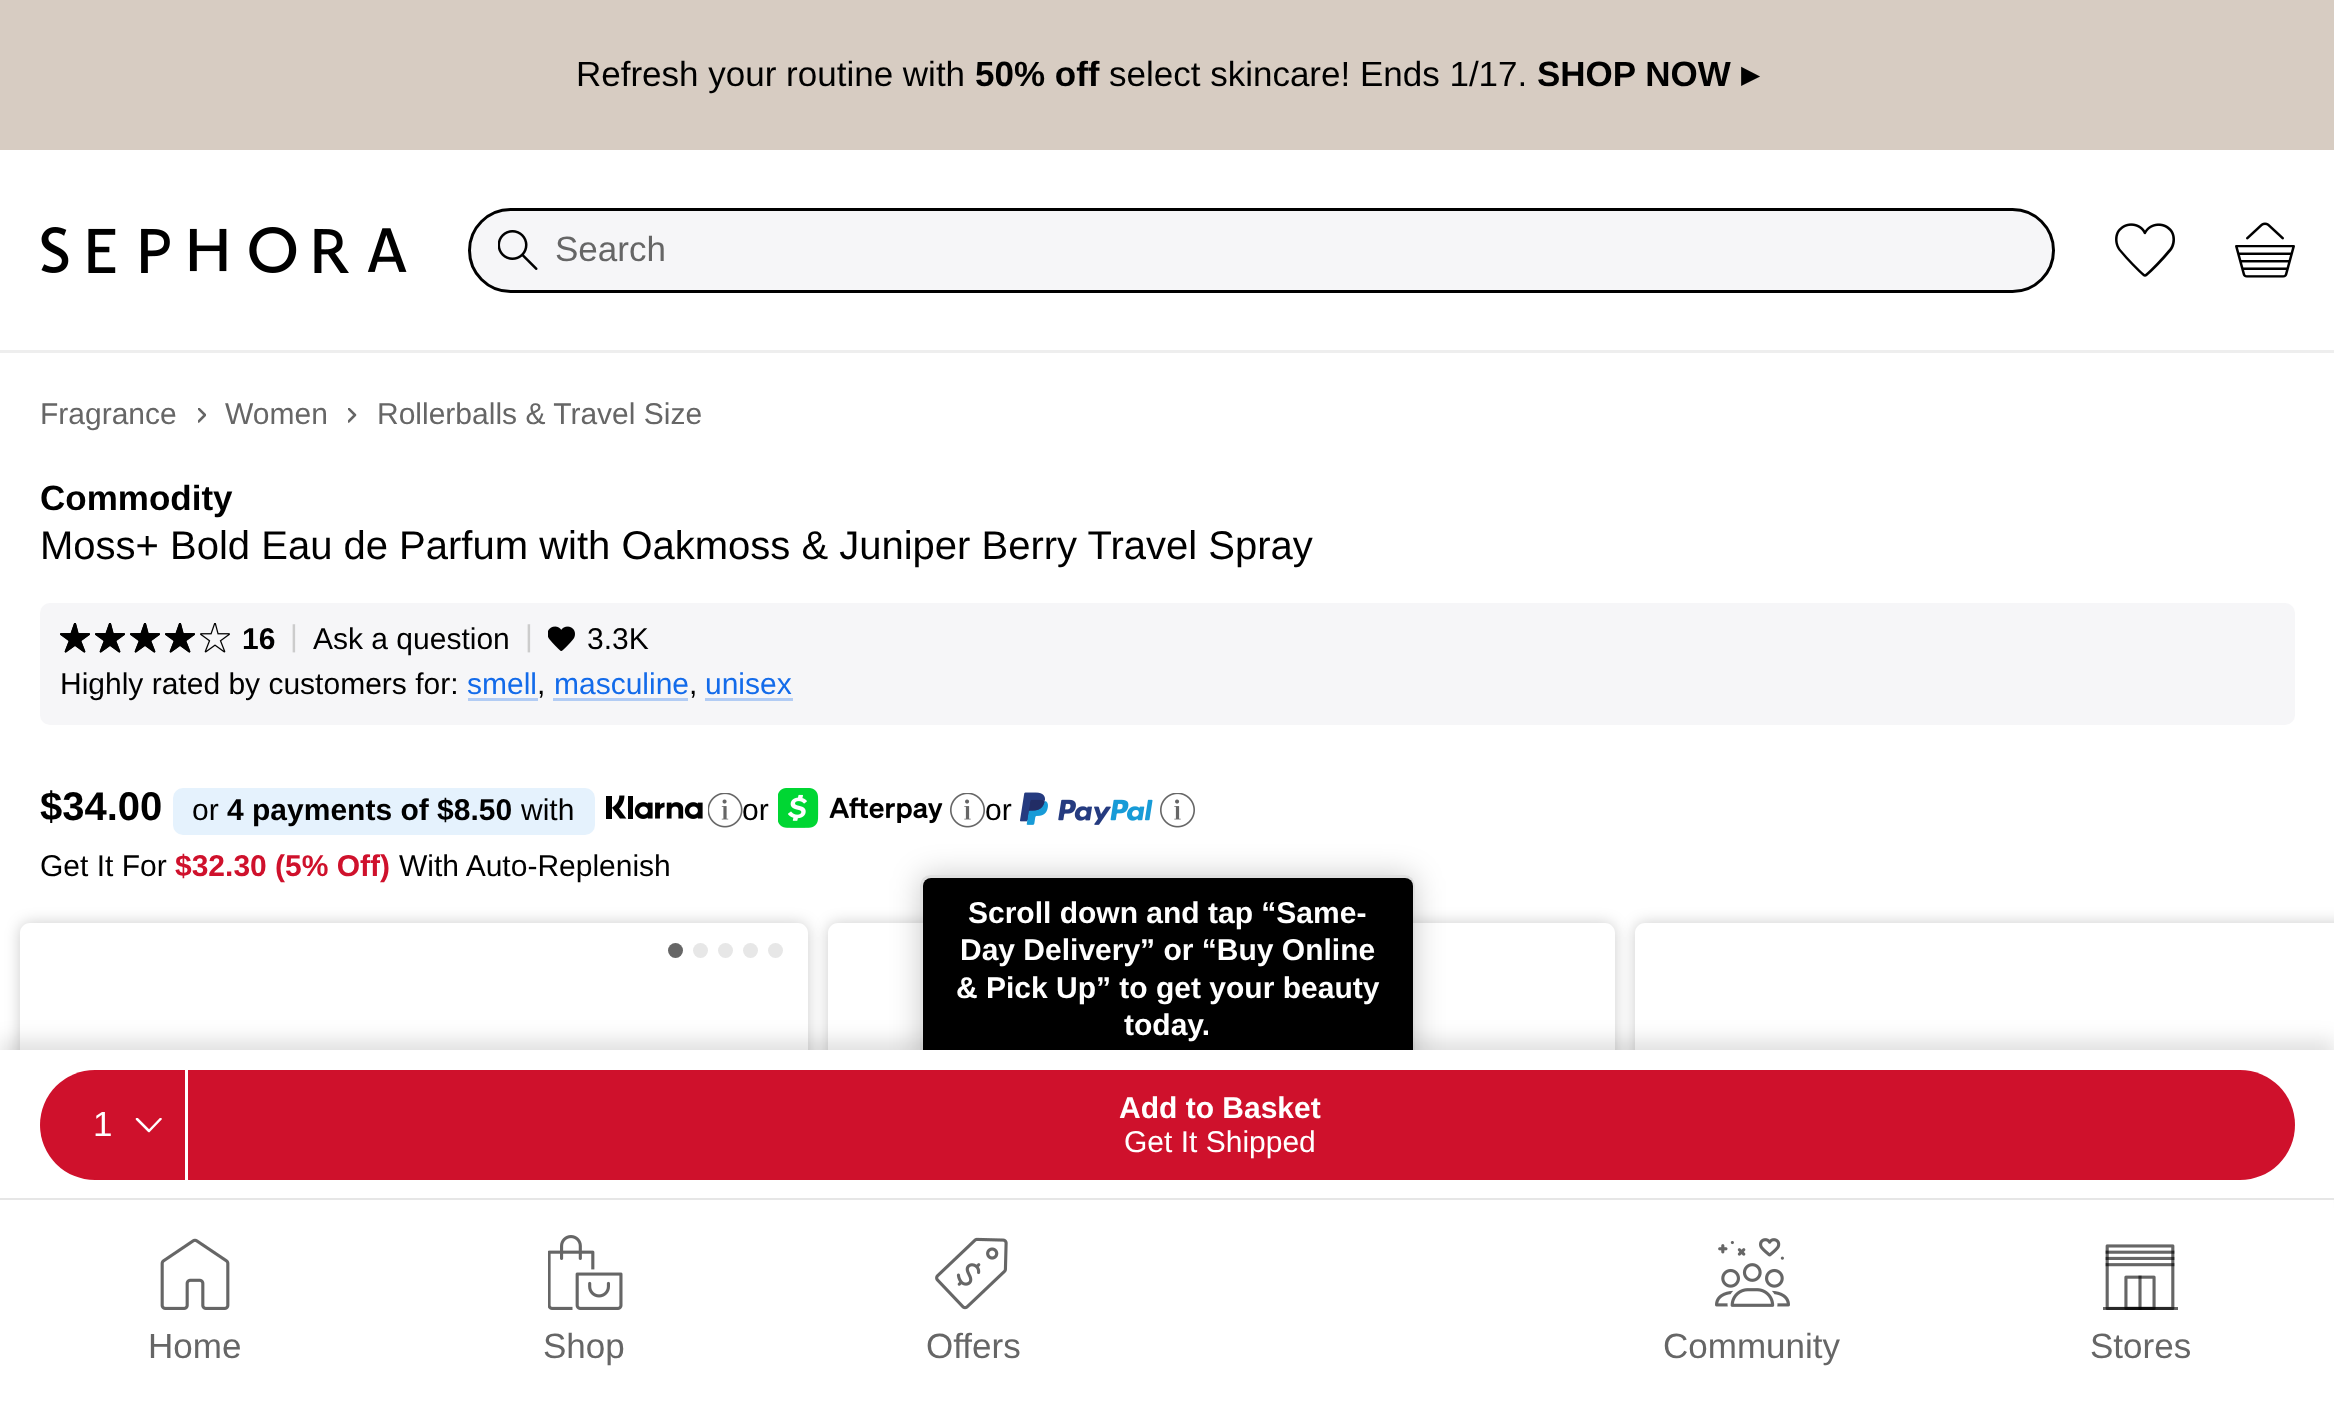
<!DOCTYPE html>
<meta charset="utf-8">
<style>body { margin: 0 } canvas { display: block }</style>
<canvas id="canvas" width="2334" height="1414"></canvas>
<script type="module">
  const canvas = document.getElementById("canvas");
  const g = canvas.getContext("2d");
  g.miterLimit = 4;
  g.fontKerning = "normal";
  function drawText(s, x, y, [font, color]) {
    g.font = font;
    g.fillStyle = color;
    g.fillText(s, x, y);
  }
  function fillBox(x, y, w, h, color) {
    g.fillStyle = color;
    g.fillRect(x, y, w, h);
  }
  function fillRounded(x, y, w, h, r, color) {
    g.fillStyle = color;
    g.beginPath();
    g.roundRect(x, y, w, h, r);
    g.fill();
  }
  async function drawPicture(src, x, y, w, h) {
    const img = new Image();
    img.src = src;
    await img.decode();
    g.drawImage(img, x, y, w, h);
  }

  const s1 = ["35px Liberation Sans", "#000000"];
  const s2 = ["bold 35px Liberation Sans", "#000000"];
  const s3 = ["bold 35px DejaVu Sans", "#000000"];
  const s4 = ["35px Liberation Sans", "#666666"];
  const s5 = ["30px Liberation Sans", "#666666"];
  const s6 = ["40px Liberation Sans", "#000000"];
  const s7 = ["bold 30px Liberation Sans", "#000000"];
  const s8 = ["30px Liberation Sans", "#CCCCCC"];
  const s9 = ["30px Liberation Sans", "#000000"];
  const s10 = ["30px Liberation Sans", "#136BEA"];
  const s11 = ["bold 40px Liberation Sans", "#000000"];
  const s12 = ["bold 30px Liberation Sans", "#CF112C"];
  const s13 = ["bold 30px Liberation Sans", "#FFFFFF"];
  const s14 = ["35px Liberation Sans", "#FFFFFF"];
  const s15 = ["30px Liberation Sans", "#FFFFFF"];

  fillBox(0, 0, 2334, 1414, "#FFFFFF");
  fillBox(0, 0, 2334, 150, "#D7CCC2");
  drawText("Refresh your routine with", 576, 86, s1);
  drawText("50% off", 975, 86, s2);
  drawText("select skincare! Ends 1/17.", 1109, 86, s1);
  drawText("SHOP NOW", 1537, 86, s2);
  drawText("▸", 1741, 86, s3);
  fillBox(0, 350, 2334, 3, "#EEEEEE");
  await drawPicture("pic1.png", 41, 227, 366, 46);
  g.fillStyle = "#F6F6F8";
  g.beginPath();
  g.roundRect(469.5, 209.5, 1584, 82, 41);
  g.fill();
  g.strokeStyle = "#000000";
  g.lineWidth = 3;
  g.stroke();
  await drawPicture("pic2.png", 498, 230, 40, 40);
  drawText("Search", 555, 261, s4);
  await drawPicture("pic3.png", 2115, 223, 60, 54);
  await drawPicture("pic4.png", 2235, 222, 60, 56);
  g.save();
  g.beginPath();
  g.moveTo(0, 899);
  g.lineTo(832, 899);
  g.lineTo(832, 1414);
  g.lineTo(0, 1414);
  g.closePath();
  g.moveTo(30, 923);
  g.lineTo(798, 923);
  g.bezierCurveTo(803.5, 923, 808, 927.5, 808, 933);
  g.lineTo(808, 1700);
  g.bezierCurveTo(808, 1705.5, 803.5, 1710, 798, 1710);
  g.lineTo(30, 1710);
  g.bezierCurveTo(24.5, 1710, 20, 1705.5, 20, 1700);
  g.lineTo(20, 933);
  g.bezierCurveTo(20, 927.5, 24.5, 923, 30, 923);
  g.closePath();
  g.clip("evenodd");
  g.fillStyle = "rgba(0, 0, 0, 0.2)";
  g.filter = "blur(7.5px)";
  g.beginPath();
  g.roundRect(20, 923, 788, 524, 10);
  g.fill();
  g.filter = "none";
  g.restore();
  g.save();
  g.beginPath();
  g.moveTo(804, 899);
  g.lineTo(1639, 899);
  g.lineTo(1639, 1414);
  g.lineTo(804, 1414);
  g.closePath();
  g.moveTo(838, 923);
  g.lineTo(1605, 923);
  g.bezierCurveTo(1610.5, 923, 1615, 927.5, 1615, 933);
  g.lineTo(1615, 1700);
  g.bezierCurveTo(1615, 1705.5, 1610.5, 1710, 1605, 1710);
  g.lineTo(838, 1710);
  g.bezierCurveTo(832.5, 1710, 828, 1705.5, 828, 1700);
  g.lineTo(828, 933);
  g.bezierCurveTo(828, 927.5, 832.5, 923, 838, 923);
  g.closePath();
  g.clip("evenodd");
  g.fillStyle = "rgba(0, 0, 0, 0.2)";
  g.filter = "blur(7.5px)";
  g.beginPath();
  g.roundRect(828, 923, 787, 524, 10);
  g.fill();
  g.filter = "none";
  g.restore();
  g.save();
  g.beginPath();
  g.moveTo(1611, 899);
  g.lineTo(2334, 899);
  g.lineTo(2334, 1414);
  g.lineTo(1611, 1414);
  g.closePath();
  g.moveTo(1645, 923);
  g.lineTo(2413, 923);
  g.bezierCurveTo(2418.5, 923, 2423, 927.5, 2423, 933);
  g.lineTo(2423, 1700);
  g.bezierCurveTo(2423, 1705.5, 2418.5, 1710, 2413, 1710);
  g.lineTo(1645, 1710);
  g.bezierCurveTo(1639.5, 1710, 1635, 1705.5, 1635, 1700);
  g.lineTo(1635, 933);
  g.bezierCurveTo(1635, 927.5, 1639.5, 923, 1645, 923);
  g.closePath();
  g.clip("evenodd");
  g.fillStyle = "rgba(0, 0, 0, 0.2)";
  g.filter = "blur(7.5px)";
  g.beginPath();
  g.roundRect(1635, 923, 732, 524, 10);
  g.fill();
  g.filter = "none";
  g.restore();
  g.save();
  g.beginPath();
  g.moveTo(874, 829);
  g.lineTo(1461, 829);
  g.lineTo(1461, 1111);
  g.lineTo(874, 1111);
  g.closePath();
  g.moveTo(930, 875);
  g.lineTo(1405, 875);
  g.bezierCurveTo(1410.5, 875, 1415, 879.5, 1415, 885);
  g.lineTo(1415, 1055);
  g.bezierCurveTo(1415, 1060.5, 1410.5, 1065, 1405, 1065);
  g.lineTo(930, 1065);
  g.bezierCurveTo(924.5, 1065, 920, 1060.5, 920, 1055);
  g.lineTo(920, 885);
  g.bezierCurveTo(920, 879.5, 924.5, 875, 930, 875);
  g.closePath();
  g.clip("evenodd");
  g.fillStyle = "rgba(0, 0, 0, 0.2)";
  g.filter = "blur(15px)";
  g.beginPath();
  g.roundRect(920, 875, 495, 190, 10);
  g.fill();
  g.filter = "none";
  g.restore();
  fillRounded(923, 878, 490, 185, 8, "#000000");
  g.beginPath();
  g.roundRect(921.5, 876.5, 492, 187, 8.5);
  g.strokeStyle = "rgba(0, 0, 0, 0.12)";
  g.stroke();
  g.fillStyle = "rgba(0, 0, 0, 0.12)";
  g.filter = "blur(10px)";
  g.beginPath();
  g.rect(0, 1040, 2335, 150);
  g.fill();
  g.filter = "none";
  fillBox(0, 1198, 2334, 2, "#E6E6E6");
  fillBox(0, 1200, 2333, 214, "#FFFFFF");
  await drawPicture("pic5.png", 160, 1238, 70, 72);
  drawText("Home", 148, 1358, s4);
  await drawPicture("pic6.png", 548, 1235, 75, 75);
  drawText("Shop", 543, 1358, s4);
  await drawPicture("pic7.png", 935, 1237, 73, 73);
  drawText("Offers", 926, 1358, s4);
  await drawPicture("pic8.png", 1715, 1238, 75, 69);
  drawText("Community", 1663, 1358, s4);
  await drawPicture("pic9.png", 2103, 1244, 75, 66);
  drawText("Stores", 2090, 1358, s4);
  drawText("Fragrance", 40, 424, s5);
  g.save();
  g.beginPath();
  g.rect(198, 408, 8, 15);
  g.clip();
  g.beginPath();
  g.moveTo(198.5, 421.5);
  g.lineTo(205, 415);
  g.lineTo(198.5, 408.5);
  g.strokeStyle = "#666666";
  g.lineWidth = 2.5;
  g.lineCap = "round";
  g.lineJoin = "round";
  g.stroke();
  g.restore();
  drawText("Women", 225, 424, s5);
  g.save();
  g.beginPath();
  g.rect(348, 408, 10, 15);
  g.clip();
  g.beginPath();
  g.moveTo(348.5, 421.5);
  g.lineTo(355, 415);
  g.lineTo(348.5, 408.5);
  g.strokeStyle = "#666666";
  g.lineWidth = 2.5;
  g.lineCap = "round";
  g.lineJoin = "round";
  g.stroke();
  g.restore();
  drawText("Rollerballs & Travel Size", 377, 424, s5);
  drawText("Commodity", 40, 510, s2);
  drawText("Moss+ Bold Eau de Parfum with Oakmoss & Juniper Berry Travel Spray", 40, 559, s6);
  fillRounded(40, 603, 2255, 122, 10, "#F6F6F8");
  await drawPicture("pic10.png", 60, 623, 30, 30);
  await drawPicture("pic10.png", 95, 623, 30, 30);
  await drawPicture("pic10.png", 130, 623, 30, 30);
  await drawPicture("pic10.png", 165, 623, 30, 30);
  await drawPicture("pic10.png", 200, 623, 30, 30);
  await drawPicture("pic11.png", 60, 623, 30, 30);
  await drawPicture("pic11.png", 95, 623, 30, 30);
  await drawPicture("pic11.png", 130, 623, 30, 30);
  await drawPicture("pic11.png", 165, 623, 30, 30);
  drawText("16", 242, 649, s7);
  drawText("|", 290, 646, s8);
  drawText("Ask a question", 313, 649, s9);
  drawText("|", 525, 646, s8);
  await drawPicture("pic12.png", 548, 626, 27, 25);
  drawText("3.3K", 587, 649, s9);
  drawText("Highly rated by customers for:", 60, 694, s9);
  drawText("smell", 467, 694, s10);
  fillBox(468, 698, 70, 3, "#B2CCF4");
  drawText(",", 537, 694, s9);
  drawText("masculine", 554, 694, s10);
  fillBox(553, 698, 135, 3, "#B2CCF4");
  drawText(",", 689, 694, s9);
  drawText("unisex", 705, 694, s10);
  fillBox(705, 698, 88, 3, "#B2CCF4");
  drawText("$34.00", 40, 820, s11);
  fillRounded(173, 788, 422, 47, 10, "#E5F2FD");
  drawText("or", 192, 820, s9);
  drawText("4 payments of $8.50", 227, 820, s7);
  drawText("with", 521, 820, s9);
  await drawPicture("pic13.png", 606, 795, 97, 24);
  await drawPicture("pic14.png", 708, 793, 35, 35);
  drawText("or", 742, 820, s9);
  await drawPicture("pic15.png", 778, 788, 165, 40);
  await drawPicture("pic16.png", 950, 793, 35, 35);
  drawText("or", 985, 820, s9);
  await drawPicture("pic17.png", 1020, 792, 133, 33);
  await drawPicture("pic16.png", 1160, 793, 35, 35);
  drawText("Get It For", 40, 876, s9);
  drawText("$32.30 (5% Off)", 175, 876, s12);
  drawText("With Auto-Replenish", 399, 876, s9);
  g.fillStyle = "#666666";
  g.beginPath();
  g.arc(675.5, 950.5, 7.5, 0, Math.PI * 2);
  g.fill();
  g.fillStyle = "#E7E7E7";
  g.beginPath();
  g.arc(700.5, 950.5, 7.5, 0, Math.PI * 2);
  g.fill();
  g.beginPath();
  g.arc(725.5, 950.5, 7.5, 0, Math.PI * 2);
  g.fill();
  g.beginPath();
  g.arc(750.5, 950.5, 7.5, 0, Math.PI * 2);
  g.fill();
  g.beginPath();
  g.arc(775.5, 950.5, 7.5, 0, Math.PI * 2);
  g.fill();
  drawText("Scroll down and tap “Same-", 968, 923, s13);
  drawText("Day Delivery” or “Buy Online", 960, 960, s13);
  drawText("& Pick Up” to get your beauty", 956, 998, s13);
  drawText("today.", 1124, 1035, s13);
  fillBox(0, 1050, 2334, 148, "#FFFFFF");
  fillRounded(40, 1070, 2255, 110, 55, "#CF112C");
  fillBox(185, 1070, 3, 110, "#FFFFFF");
  drawText("1", 93, 1136, s14);
  g.save();
  g.beginPath();
  g.rect(135, 1118, 28, 15);
  g.clip();
  g.beginPath();
  g.moveTo(137, 1119);
  g.lineTo(149, 1131);
  g.lineTo(160.5, 1119);
  g.strokeStyle = "#FFFFFF";
  g.lineWidth = 2.5;
  g.lineCap = "round";
  g.lineJoin = "round";
  g.stroke();
  g.restore();
  drawText("Add to Basket", 1119, 1118, s13);
  drawText("Get It Shipped", 1124, 1152, s15);
</script>
